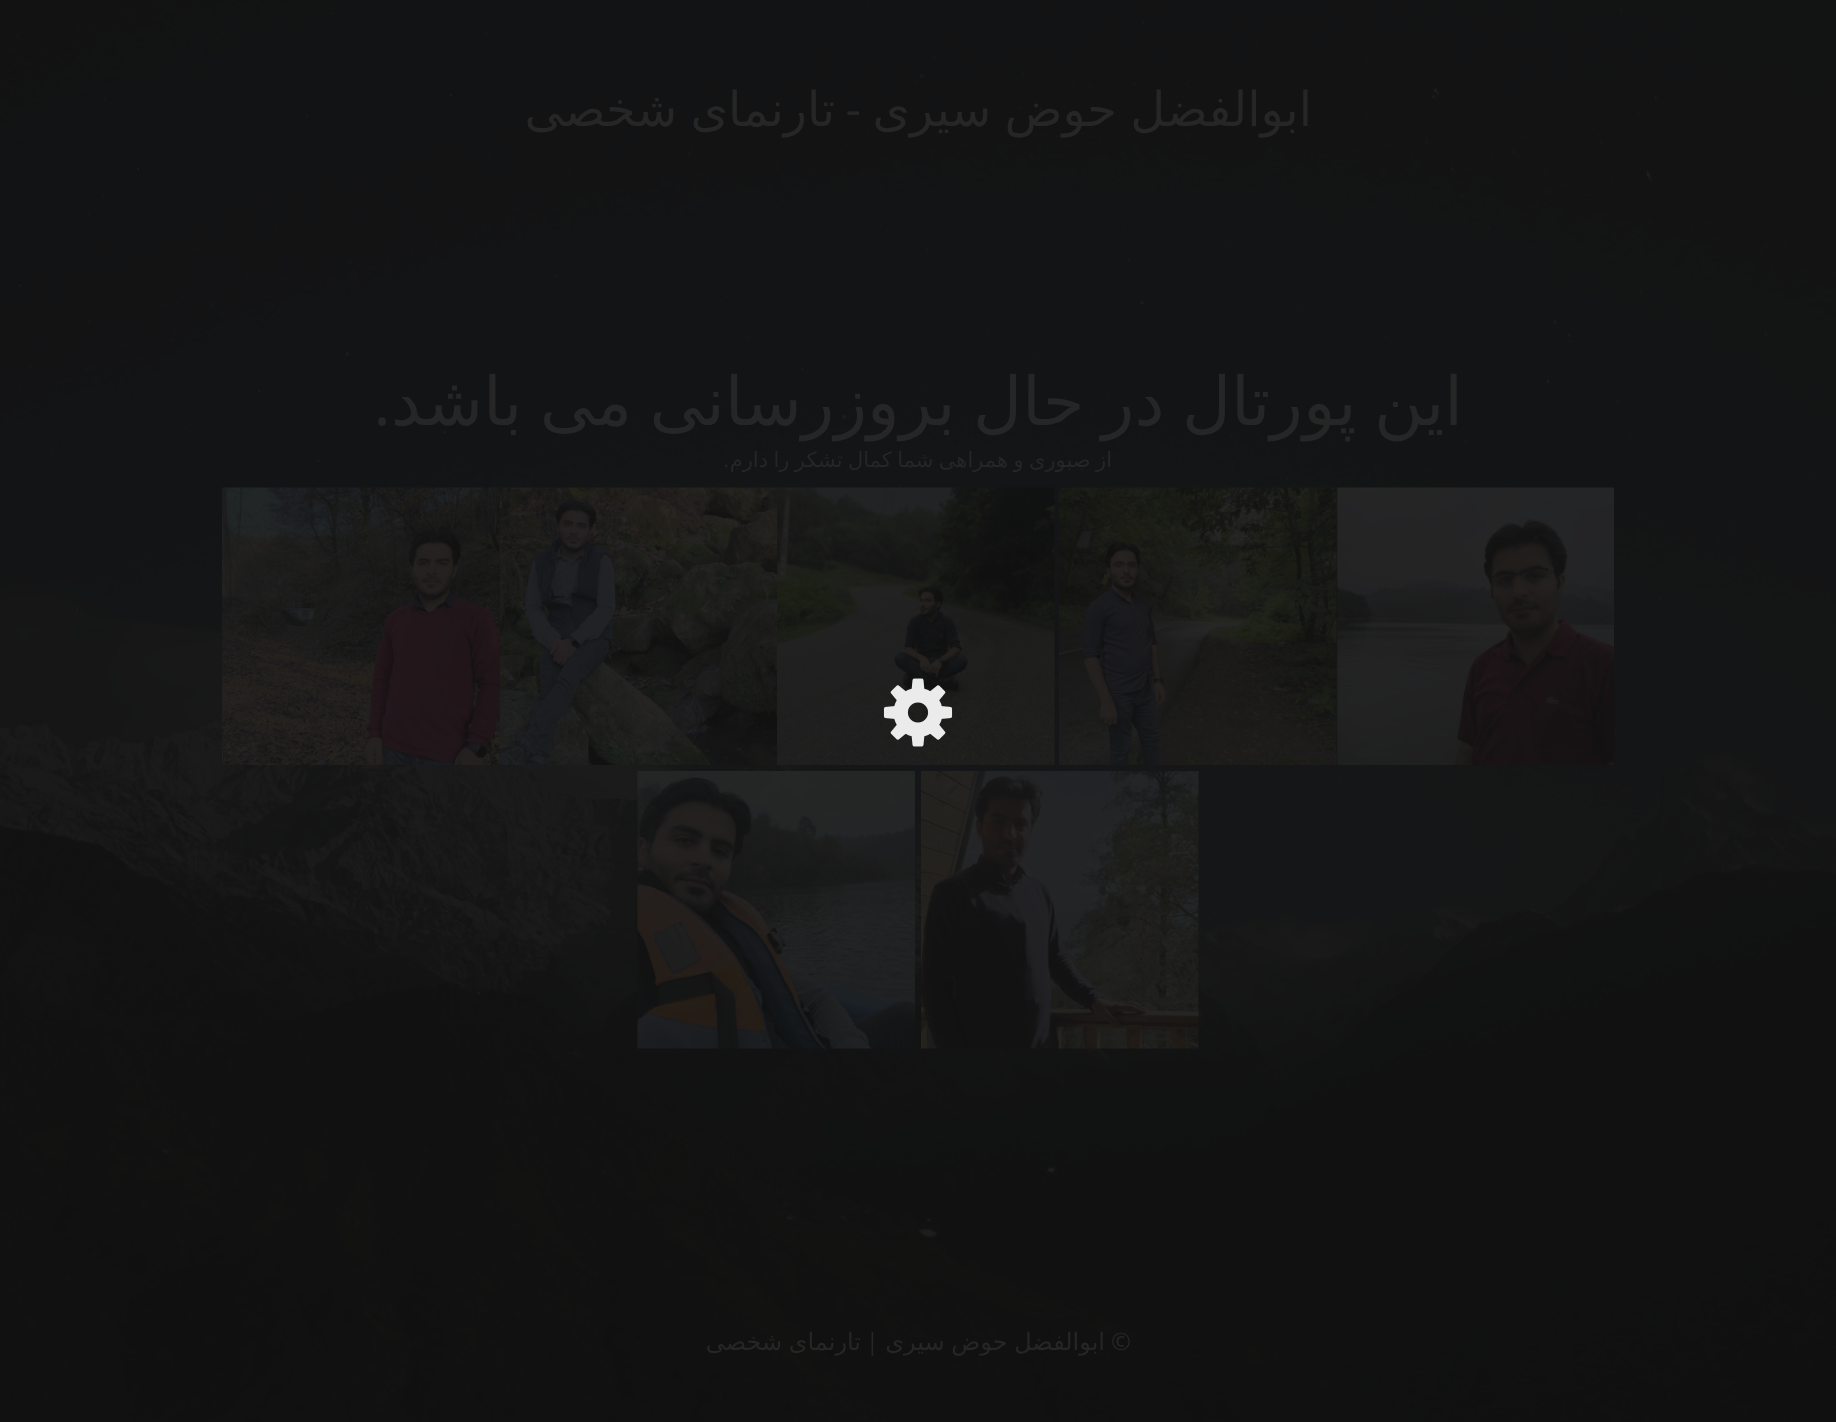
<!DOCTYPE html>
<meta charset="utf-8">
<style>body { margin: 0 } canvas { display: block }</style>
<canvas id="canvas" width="1836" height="1422"></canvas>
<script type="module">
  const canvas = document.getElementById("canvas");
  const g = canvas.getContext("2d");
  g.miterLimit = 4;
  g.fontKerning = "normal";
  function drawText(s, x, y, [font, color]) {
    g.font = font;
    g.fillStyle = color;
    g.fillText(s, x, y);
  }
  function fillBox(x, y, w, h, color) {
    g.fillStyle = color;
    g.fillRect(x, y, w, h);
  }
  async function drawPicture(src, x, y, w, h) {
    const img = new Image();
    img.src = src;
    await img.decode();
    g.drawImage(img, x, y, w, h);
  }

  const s1 = ["48px DejaVu Sans", "#262626"];
  const s2 = ["48px Open Sans", "#262626"];
  const s3 = ["67.5px DejaVu Sans", "#262626"];
  const s4 = ["67.5px Open Sans", "#262626"];
  const s5 = ["21px DejaVu Sans", "#262626"];
  const s6 = ["21px Open Sans", "#262626"];
  const s7 = ["24px Open Sans", "#262626"];
  const s8 = ["24px DejaVu Sans", "#262626"];

  fillBox(0, 0, 1836, 1422, "#FFFFFF");
  await drawPicture("pic1.png", 0, 0, 1836, 1422);
  g.wordSpacing = "-2px";
  g.direction = "rtl";
  drawText("ابوالفضل حوض سیری", 1312, 126, s1);
  g.wordSpacing = "0px";
  drawText("-", 861, 126, s2);
  g.wordSpacing = "-2px";
  drawText("تارنمای شخصی", 835, 126, s1);
  g.wordSpacing = "-4px";
  drawText("این پورتال در حال بروزرسانی می باشد", 1463, 425, s3);
  g.wordSpacing = "0px";
  drawText(".", 391, 425, s4);
  g.wordSpacing = "-1.25px";
  drawText("از صبوری و همراهی شما کمال تشکر را دارم", 1112, 467, s5);
  g.wordSpacing = "0px";
  drawText(".", 729, 467, s6);
  await drawPicture("pic2.png", 1336, 487, 278, 278);
  await drawPicture("pic3.png", 1059, 487, 278, 278);
  await drawPicture("pic4.png", 777, 487, 278, 278);
  await drawPicture("pic5.png", 499, 487, 278, 278);
  await drawPicture("pic6.png", 222, 487, 278, 278);
  await drawPicture("pic7.png", 921, 771, 278, 278);
  await drawPicture("pic8.png", 637, 771, 278, 278);
  await drawPicture("pic9.png", 883, 678, 70, 69);
  drawText("©", 1131, 1350, s7);
  g.wordSpacing = "-1px";
  drawText("ابوالفضل حوض سیری", 1105, 1350, s8);
  g.wordSpacing = "0px";
  drawText("|", 879, 1350, s7);
  g.wordSpacing = "-1px";
  drawText("تارنمای شخصی", 861, 1350, s8);
</script>
